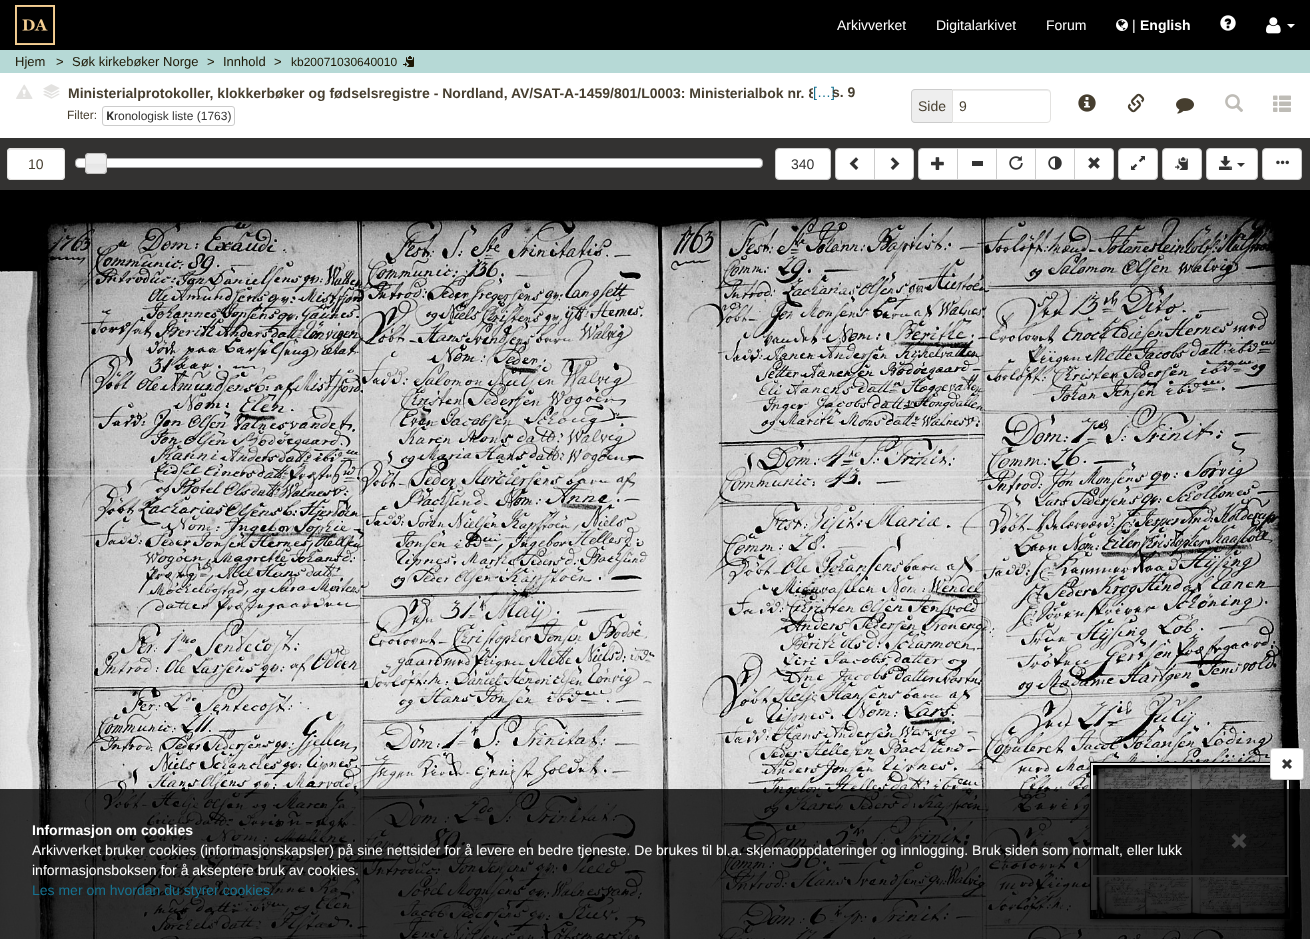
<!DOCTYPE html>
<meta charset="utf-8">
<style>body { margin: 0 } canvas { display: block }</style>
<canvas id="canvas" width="1310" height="939"></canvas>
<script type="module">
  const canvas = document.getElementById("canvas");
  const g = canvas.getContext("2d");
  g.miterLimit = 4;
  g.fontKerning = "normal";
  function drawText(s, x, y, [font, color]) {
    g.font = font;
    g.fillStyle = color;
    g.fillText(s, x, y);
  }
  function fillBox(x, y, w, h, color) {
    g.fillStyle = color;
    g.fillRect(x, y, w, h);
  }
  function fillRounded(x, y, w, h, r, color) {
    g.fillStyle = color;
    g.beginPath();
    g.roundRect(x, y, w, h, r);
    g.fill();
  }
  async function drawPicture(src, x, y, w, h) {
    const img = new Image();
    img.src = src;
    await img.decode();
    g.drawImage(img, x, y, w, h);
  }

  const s1 = ["14px Liberation Sans", "#FFFFFF"];
  const s2 = ["bold 14px Liberation Sans", "#FFFFFF"];
  const s3 = ["13px Liberation Sans", "#1D1705"];
  const s4 = ["12px Liberation Sans", "#1D1705"];
  const s5 = ["bold 14px Liberation Sans", "#463E2F"];
  const s6 = ["14px Liberation Sans", "#177391"];
  const s7 = ["12px Liberation Sans", "#463E2F"];
  const s8 = ["bold 12px Noto Sans", "#333333"];
  const s9 = ["12px Liberation Sans", "#333333"];
  const s10 = ["14px Liberation Sans", "#463E2F"];
  const s11 = ["14px Liberation Sans", "#333333"];

  fillBox(0, 0, 1310, 939, "#B6D9D6");
  fillBox(0, 0, 1310, 50, "#000000");
  await drawPicture("pic1.png", 15, 5, 40, 40);
  drawText("Arkivverket", 837, 30, s1);
  drawText("Digitalarkivet", 936, 30, s1);
  drawText("Forum", 1046, 30, s1);
  await drawPicture("pic2.png", 1116, 19, 12, 12);
  drawText("|", 1132, 30, s1);
  drawText("English", 1140, 30, s2);
  await drawPicture("pic3.png", 1220, 15, 16, 16);
  await drawPicture("pic4.png", 1266, 17, 15, 17);
  g.beginPath();
  g.moveTo(1287, 24);
  g.lineTo(1295, 24);
  g.lineTo(1291, 28);
  g.closePath();
  g.fill();
  drawText("Hjem", 15, 66, s3);
  drawText(">", 56, 66, s3);
  drawText("Søk kirkebøker Norge", 72, 66, s3);
  drawText(">", 207, 66, s3);
  drawText("Innhold", 223, 66, s3);
  drawText(">", 274, 66, s3);
  drawText("kb20071030640010", 291, 66, s4);
  await drawPicture("pic5.png", 403, 56, 11, 11);
  fillBox(0, 73, 1310, 65, "#FFFFFF");
  await drawPicture("pic6.png", 16, 84, 17, 15);
  await drawPicture("pic11.png", 43, 93, 17, 6);
  await drawPicture("pic10.png", 45, 90, 14, 7);
  await drawPicture("pic9.png", 43, 90, 17, 6);
  await drawPicture("pic8.png", 45, 87, 14, 7);
  await drawPicture("pic7.png", 43, 84, 17, 9);
  drawText("Ministerialprotokoller, klokkerbøker og fødselsregistre - Nordland, AV/SAT-A-1459/801/L0003: Ministerialbok nr. 8", 68, 98, s5);
  fillBox(813, 88, 22, 10, "#FFFFFF");
  drawText("[…]", 813, 97, s6);
  drawText("s. 9", 832, 97, s5);
  drawText("Filter:", 67, 119, s7);
  g.beginPath();
  g.roundRect(102.5, 106.5, 132, 19, 2.5);
  g.strokeStyle = "#CCCCCC";
  g.stroke();
  drawText("K", 106, 120, s8);
  drawText("ronologisk liste (1763)", 114, 120, s9);
  g.fillStyle = "#EEEEEE";
  g.beginPath();
  g.roundRect(911, 89, 41, 34, [4, 0, 0, 4]);
  g.fill();
  g.fillStyle = "#CCCCCC";
  g.beginPath();
  g.moveTo(915, 89);
  g.lineTo(952, 89);
  g.lineTo(952, 123);
  g.lineTo(915, 123);
  g.bezierCurveTo(913, 123, 911, 121, 911, 119);
  g.lineTo(911, 93);
  g.bezierCurveTo(911, 91, 913, 89, 915, 89);
  g.closePath();
  g.moveTo(915, 90);
  g.lineTo(952, 90);
  g.lineTo(952, 122);
  g.lineTo(915, 122);
  g.bezierCurveTo(913, 122, 912, 121, 912, 119);
  g.lineTo(912, 93);
  g.bezierCurveTo(912, 91, 913, 90, 915, 90);
  g.closePath();
  g.fill("evenodd");
  drawText("Side", 918, 111, s10);
  g.fillStyle = "#ECECEC";
  g.beginPath();
  g.moveTo(953, 91);
  g.lineTo(1047, 91);
  g.bezierCurveTo(1049, 91, 1050, 92, 1050, 94);
  g.lineTo(1050, 93);
  g.bezierCurveTo(1050, 91, 1049, 90, 1047, 90);
  g.lineTo(953, 90);
  g.closePath();
  g.fill();
  g.beginPath();
  g.roundRect(952.5, 89.5, 98, 33, [0, 3.5, 3.5, 0]);
  g.strokeStyle = "#E3E2E0";
  g.stroke();
  drawText("9", 959, 111, s10);
  await drawPicture("pic12.png", 1078, 94, 18, 18);
  await drawPicture("pic13.png", 1127, 93, 18, 20);
  await drawPicture("pic14.png", 1176, 98, 18, 16);
  await drawPicture("pic15.png", 1225, 94, 18, 18);
  await drawPicture("pic16.png", 1273, 95, 18, 17);
  fillBox(0, 138, 1310, 52, "#333231");
  fillRounded(7, 148, 58, 32, 4, "#FFFFFF");
  g.fillStyle = "#ECECEC";
  g.beginPath();
  g.moveTo(11, 150);
  g.lineTo(61, 150);
  g.bezierCurveTo(63, 150, 64, 151, 64, 153);
  g.bezierCurveTo(64, 147, 57, 149, 53, 149);
  g.lineTo(19, 149);
  g.bezierCurveTo(15, 149, 8, 147, 8, 153);
  g.bezierCurveTo(8, 151, 9, 150, 11, 150);
  g.closePath();
  g.fill();
  g.beginPath();
  g.roundRect(7.5, 148.5, 57, 31, 3.5);
  g.stroke();
  drawText("10", 28, 169, s10);
  g.fillStyle = "#FFFFFF";
  g.beginPath();
  g.roundRect(75.5, 158.5, 687, 9, 3.5);
  g.fill();
  g.strokeStyle = "#AAAAAA";
  g.stroke();
  await drawPicture("pic17.png", 85, 153, 22, 21);
  g.beginPath();
  g.roundRect(85.5, 153.5, 21, 20, 3.5);
  g.strokeStyle = "#BFBEBD";
  g.stroke();
  g.beginPath();
  g.roundRect(775.5, 148.5, 55, 31, 3.5);
  g.fill();
  g.strokeStyle = "#CCCCCC";
  g.stroke();
  drawText("340", 791, 169, s11);
  g.fillStyle = "#FFFFFF";
  g.beginPath();
  g.roundRect(835.5, 148.5, 39, 31, [3.5, 0, 0, 3.5]);
  g.fill();
  g.stroke();
  await drawPicture("pic18.png", 849, 157, 10, 13);
  g.beginPath();
  g.roundRect(874.5, 148.5, 39, 31, [0, 3.5, 3.5, 0]);
  g.fill();
  g.stroke();
  await drawPicture("pic19.png", 890, 157, 10, 13);
  g.beginPath();
  g.roundRect(918.5, 148.5, 39, 31, [3.5, 0, 0, 3.5]);
  g.fill();
  g.stroke();
  await drawPicture("pic20.png", 931, 157, 13, 13);
  g.beginPath();
  g.rect(957.5, 148.5, 39, 31);
  g.fill();
  g.stroke();
  fillBox(972, 161, 11, 5, "#333333");
  g.fillStyle = "#FFFFFF";
  g.beginPath();
  g.rect(996.5, 148.5, 39, 31);
  g.fill();
  g.stroke();
  await drawPicture("pic21.png", 1009, 156, 14, 14);
  g.beginPath();
  g.rect(1035.5, 148.5, 39, 31);
  g.fill();
  g.stroke();
  await drawPicture("pic22.png", 1048, 156, 14, 14);
  g.beginPath();
  g.roundRect(1074.5, 148.5, 39, 31, [0, 3.5, 3.5, 0]);
  g.fill();
  g.stroke();
  await drawPicture("pic23.png", 1088, 157, 12, 12);
  g.beginPath();
  g.roundRect(1118.5, 148.5, 39, 31, 3.5);
  g.fill();
  g.stroke();
  await drawPicture("pic24.png", 1131, 156, 14, 14);
  g.beginPath();
  g.roundRect(1162.5, 148.5, 39, 31, 3.5);
  g.fill();
  g.stroke();
  await drawPicture("pic25.png", 1175, 157, 13, 13);
  g.beginPath();
  g.roundRect(1206.5, 148.5, 51, 31, 3.5);
  g.fill();
  g.stroke();
  await drawPicture("pic26.png", 1219, 156, 13, 14);
  g.fillStyle = "#333333";
  g.beginPath();
  g.moveTo(1237, 163);
  g.lineTo(1245, 163);
  g.lineTo(1241, 167);
  g.closePath();
  g.fill();
  g.fillStyle = "#FFFFFF";
  g.beginPath();
  g.roundRect(1262.5, 148.5, 39, 31, 3.5);
  g.fill();
  g.stroke();
  await drawPicture("pic27.png", 1276, 160, 13, 5);
  await drawPicture("pic28.png", 0, 190, 1310, 749);
  g.fillStyle = "#323232";
  g.filter = "blur(2.5px)";
  g.beginPath();
  g.rect(1091, 763, 200, 157);
  g.fill();
  g.filter = "none";
  g.strokeStyle = "#000000";
  g.strokeRect(1090.5, 762.5, 199, 156);
  await drawPicture("pic30.png", 1091, 763, 198, 155);
  fillBox(1091, 767, 198, 110, "rgba(0, 0, 0, 0.5)");
  g.strokeStyle = "rgba(255, 255, 255, 0.9)";
  g.lineWidth = 2;
  g.strokeRect(1092, 764, 196, 112);
  g.fillStyle = "rgba(0, 0, 0, 0.1)";
  g.filter = "blur(0.5px)";
  g.beginPath();
  g.roundRect(1270, 749, 34, 32, 3);
  g.fill();
  g.filter = "none";
  g.fillStyle = "#FFFFFF";
  g.beginPath();
  g.roundRect(1270.5, 748.5, 33, 31, 2.5);
  g.fill();
  g.strokeStyle = "#CCCCCC";
  g.lineWidth = 1;
  g.stroke();
  await drawPicture("pic29.png", 1282, 759, 10, 10);
  fillBox(0, 789, 1310, 150, "rgba(0, 0, 0, 0.8)");
  drawText("Informasjon om cookies", 32, 835, s2);
  await drawPicture("pic31.png", 1231, 833, 16, 16);
  drawText("Arkivverket bruker cookies (informasjonskapsler) på sine nettsider for å levere en bedre tjeneste. De brukes til bl.a. skjemaoppdateringer og innlogging. Bruk siden som normalt, eller lukk", 32, 855, s1);
  drawText("informasjonsboksen for å akseptere bruk av cookies.", 32, 875, s1);
  drawText("Les mer om hvordan du styrer cookies.", 32, 895, s6);
</script>
